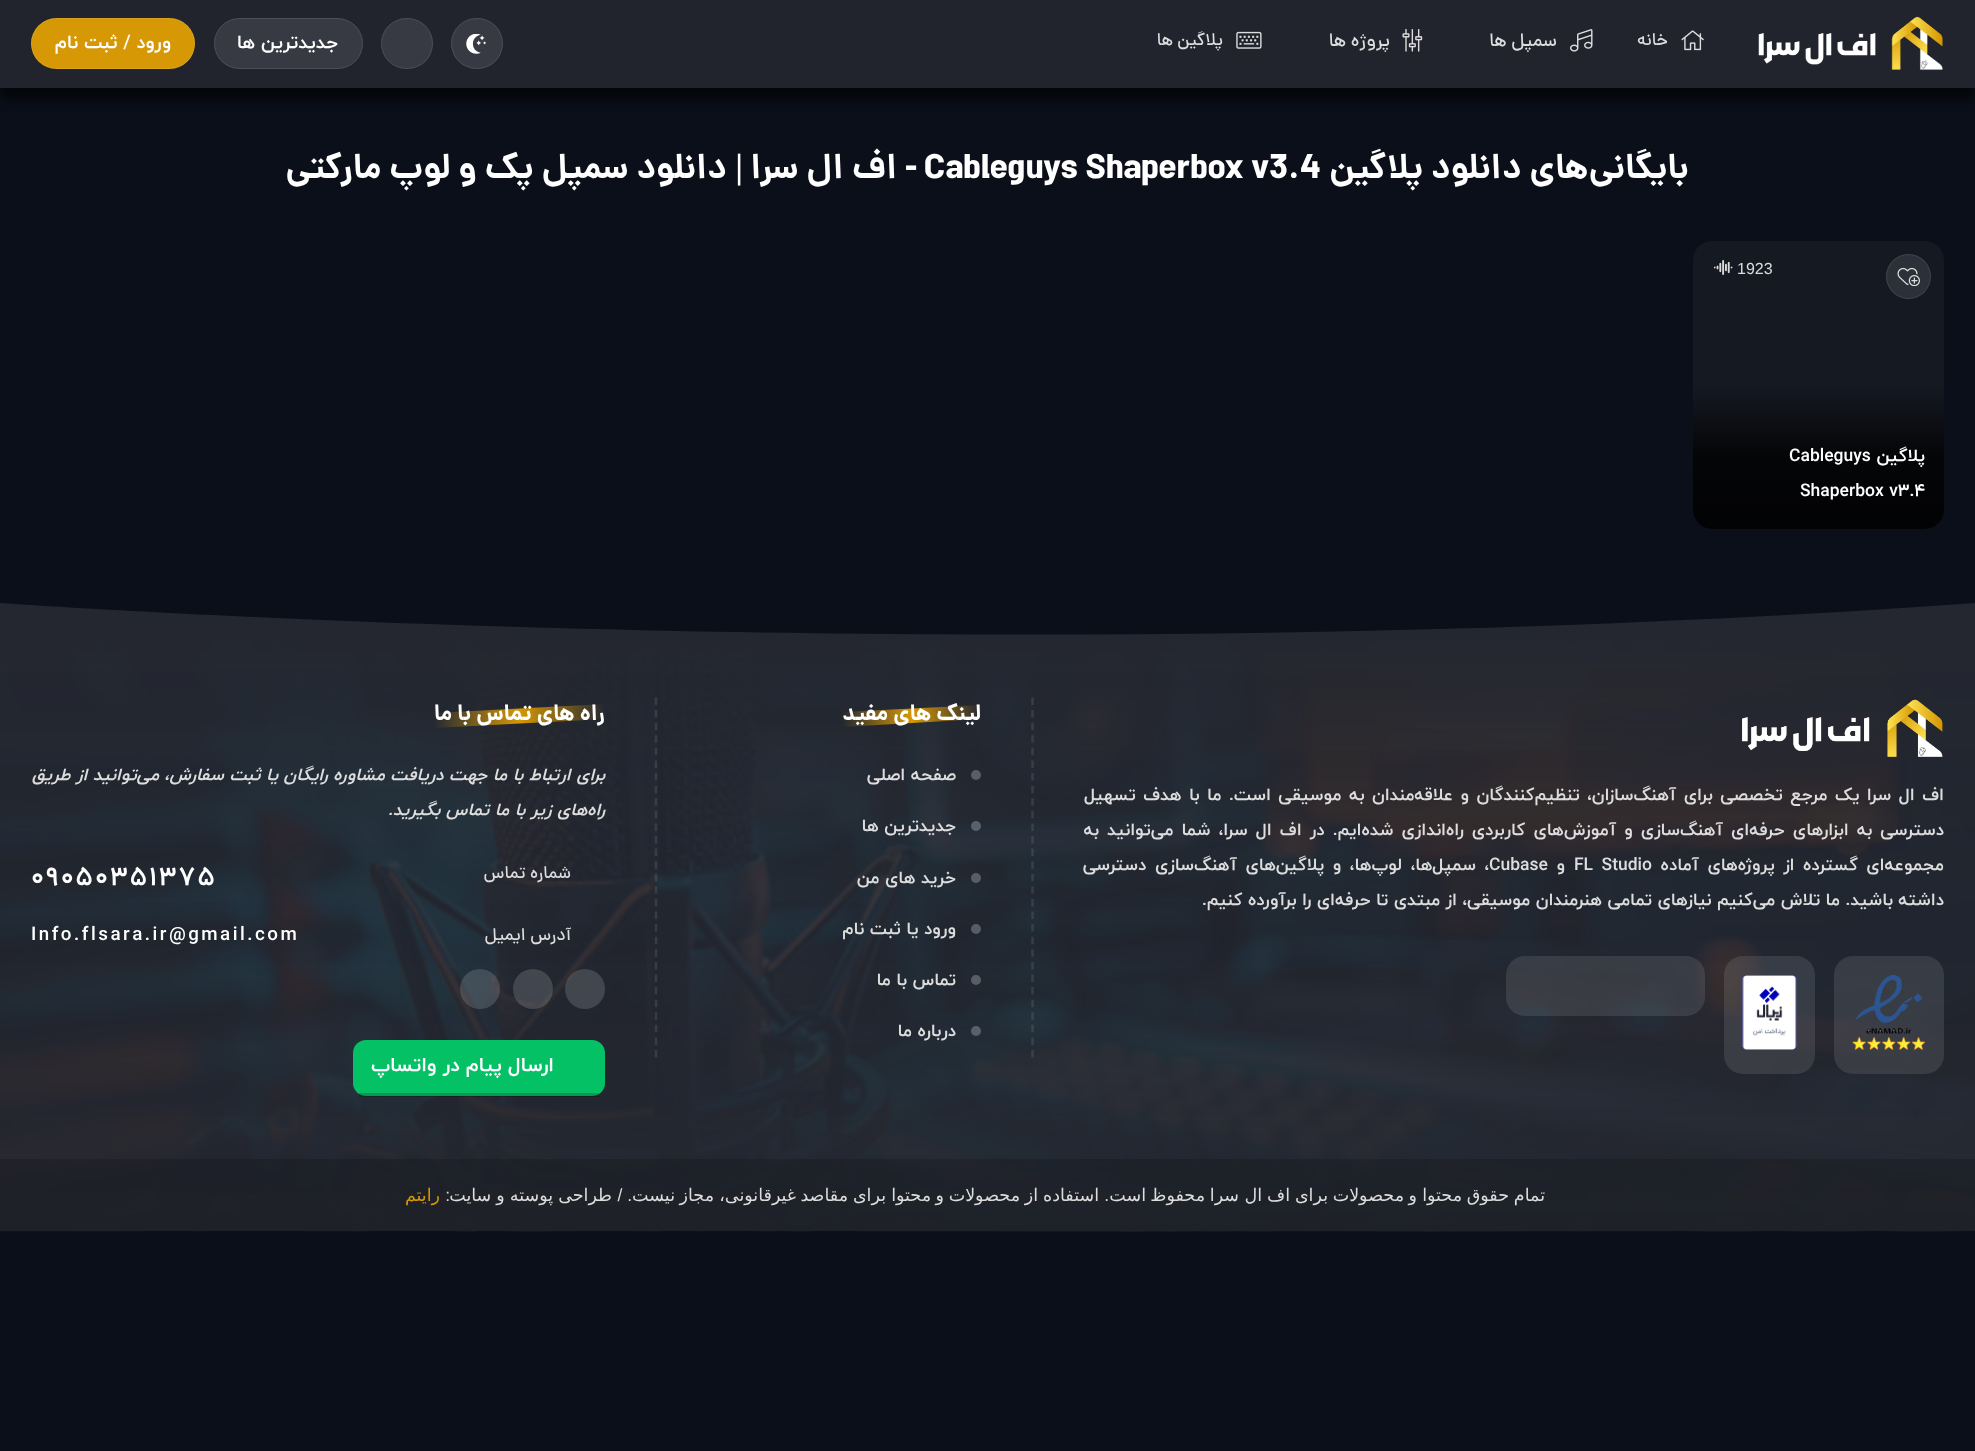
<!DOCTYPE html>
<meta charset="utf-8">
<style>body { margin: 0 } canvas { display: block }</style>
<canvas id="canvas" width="1975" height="1451"></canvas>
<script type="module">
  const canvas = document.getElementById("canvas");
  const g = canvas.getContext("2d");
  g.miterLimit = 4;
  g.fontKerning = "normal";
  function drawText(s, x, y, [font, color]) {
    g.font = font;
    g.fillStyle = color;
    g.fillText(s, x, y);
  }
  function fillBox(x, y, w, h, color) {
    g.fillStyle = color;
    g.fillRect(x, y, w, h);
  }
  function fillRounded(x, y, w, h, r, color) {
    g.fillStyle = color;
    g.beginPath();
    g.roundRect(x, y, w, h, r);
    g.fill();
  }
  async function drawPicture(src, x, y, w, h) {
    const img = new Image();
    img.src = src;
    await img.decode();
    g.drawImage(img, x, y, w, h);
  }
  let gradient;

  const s1 = ["500 17.5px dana", "#DDDDDD"];
  const s2 = ["500 18.75px dana", "#DDDDDD"];
  const s3 = ["bold 18.75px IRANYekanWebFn", "#FFFFFF"];
  const s4 = ["bold 35px dana", "#FFFFFF"];
  const s5 = ["bold 35px Liberation Serif", "#FFFFFF"];
  const s6 = ["16px Liberation Sans", "#DDDDDD"];
  const s7 = ["bold 17.5px IRANYekanWebFn", "#FFFFFF"];
  const s8 = ["bold 17.5px IRANYekanWebFn", "#DDDDDD"];
  const s9 = ["bold 22.5px dana", "#FFFFFF"];
  const s10 = ["italic bold 17.5px IRANYekanWebFn", "#DDDDDD"];
  const s11 = ["bold 26.25px IRANYekanWebFn", "#FFFFFF"];
  const s12 = ["bold 20px IRANYekanWebFn", "#FFFFFF"];
  const s13 = ["17.5px DejaVu Sans", "#DDDDDD"];
  const s14 = ["17.5px Liberation Sans", "#DDDDDD"];
  const s15 = ["17.5px DejaVu Sans", "#D69804"];

  fillBox(0, 0, 1975, 1451, "#0B0F19");
  g.save();
  g.beginPath();
  g.moveTo(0, 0);
  g.lineTo(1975, 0);
  g.lineTo(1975, 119);
  g.lineTo(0, 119);
  g.closePath();
  g.moveTo(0, 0);
  g.lineTo(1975, 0);
  g.lineTo(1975, 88);
  g.lineTo(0, 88);
  g.closePath();
  g.clip("evenodd");
  g.fillStyle = "rgba(0, 0, 0, 0.6)";
  g.filter = "blur(6px)";
  g.beginPath();
  g.rect(0, 13, 1975, 87);
  g.fill();
  g.filter = "none";
  g.restore();
  fillBox(0, 0, 1975, 88, "rgba(36, 39, 48, 0.9)");
  await drawPicture("pic1.png", 1758, 16, 185, 54);
  await drawPicture("pic2.png", 1681, 30, 23, 21);
  g.direction = "rtl";
  drawText("خانه", 1668, 45, s1);
  await drawPicture("pic3.png", 1570, 29, 23, 23);
  drawText("سمپل ها", 1557, 46, s2);
  await drawPicture("pic4.png", 1402, 29, 21, 23);
  drawText("پروژه ها", 1390, 46, s2);
  await drawPicture("pic5.png", 1236, 31, 26, 18);
  drawText("پلاگین ها", 1223, 45, s1);
  fillRounded(451, 18, 52, 51, 25.5, "#383A43");
  g.beginPath();
  g.roundRect(451.5, 18.5, 51, 50, 25);
  g.strokeStyle = "rgba(255, 255, 255, 0.1)";
  g.stroke();
  await drawPicture("pic6.png", 466, 34, 20, 20);
  fillRounded(381, 18, 52, 51, 25.5, "#383A43");
  g.beginPath();
  g.roundRect(381.5, 18.5, 51, 50, 25);
  g.stroke();
  fillRounded(214, 18, 149, 51, 25.5, "#383A43");
  g.beginPath();
  g.roundRect(214.5, 18.5, 148, 50, 25);
  g.stroke();
  drawText("جدیدترین ها", 338, 48, s3);
  fillRounded(31, 18, 164, 51, 25.5, "#D69804");
  g.beginPath();
  g.roundRect(31.5, 18.5, 163, 50, 25);
  g.stroke();
  drawText("ورود / ثبت نام", 171, 48, s3);
  drawText("بایگانی‌های دانلود پلاگین", 1689, 178, s4);
  g.direction = "ltr";
  drawText("Cableguys Shaperbox v3.4", 924, 178, s4);
  g.direction = "rtl";
  drawText("- اف ال سرا", 917, 178, s4);
  drawText("|", 743, 178, s5);
  drawText("دانلود سمپل پک و لوپ مارکتی", 727, 178, s4);
  fillRounded(1693, 241, 251, 288, 19, "#151922");
  g.fillStyle = "#2C3038";
  g.beginPath();
  g.arc(1908.5, 276.5, 22.5, 0, Math.PI * 2);
  g.fill();
  g.beginPath();
  g.arc(1908.5, 276.5, 22, 0, Math.PI * 2);
  g.stroke();
  await drawPicture("pic7.png", 1897, 267, 23, 19);
  g.direction = "ltr";
  drawText("1923", 1737, 274, s6);
  await drawPicture("pic8.png", 1714, 260, 19, 15);
  gradient = g.createLinearGradient(1818, 384, 1818, 529);
  gradient.addColorStop(0, "rgba(0, 0, 0, 0)");
  gradient.addColorStop(0.5, "rgba(0, 0, 0, 0.8)");
  gradient.addColorStop(1, "rgba(0, 0, 0, 0.9)");
  g.fillStyle = gradient;
  g.beginPath();
  g.roundRect(1693, 384, 251, 145, [0, 0, 19, 19]);
  g.fill();
  g.direction = "rtl";
  drawText("پلاگین", 1925, 461, s7);
  g.direction = "ltr";
  drawText("Cableguys", 1789, 461, s7);
  drawText("Shaperbox v3.4", 1800, 496, s7);
  g.save();
  g.beginPath();
  g.rect(0, 603, 1975, 32);
  g.clip();
  g.fillStyle = "#242730";
  g.beginPath();
  g.moveTo(-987, 669);
  g.lineTo(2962, 669);
  g.lineTo(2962, 603);
  g.lineTo(1975, 603);
  g.bezierCurveTo(991, 674, 0, 603, 0, 603);
  g.lineTo(-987, 603);
  g.closePath();
  g.fill();
  g.restore();
  await drawPicture("pic9.png", 0, 635, 1975, 597);
  await drawPicture("pic10.png", 1742, 699, 201, 58);
  g.wordSpacing = "2px";
  g.direction = "rtl";
  drawText("اف ال سرا یک مرجع تخصصی برای آهنگ‌سازان، تنظیم‌کنندگان و علاقه‌مندان به موسیقی است. ما با هدف تسهیل", 1944, 800, s8);
  g.wordSpacing = "2.6px";
  drawText("دسترسی به ابزارهای حرفه‌ای آهنگ‌سازی و آموزش‌های کاربردی راه‌اندازی شده‌ایم. در اف ال سرا، شما می‌توانید به", 1944, 835, s8);
  g.wordSpacing = "3px";
  drawText("مجموعه‌ای گسترده از پروژه‌های آماده", 1944, 870, s8);
  g.direction = "ltr";
  drawText("FL Studio", 1574, 870, s8);
  g.wordSpacing = "0px";
  g.direction = "rtl";
  drawText("و", 1565, 870, s8);
  g.direction = "ltr";
  drawText("Cubase", 1489, 870, s8);
  g.wordSpacing = "3px";
  g.direction = "rtl";
  drawText("، سمپل‌ها، لوپ‌ها، و پلاگین‌های آهنگ‌سازی دسترسی", 1489, 870, s8);
  g.wordSpacing = "0px";
  drawText("داشته باشید. ما تلاش می‌کنیم نیازهای تمامی هنرمندان موسیقی، از مبتدی تا حرفه‌ای را برآورده کنیم.", 1944, 905, s8);
  fillRounded(1834, 956, 110, 118, 19, "rgba(255, 255, 255, 0.1)");
  await drawPicture("pic11.png", 1852, 975, 73, 75);
  fillRounded(1724, 956, 91, 118, 19, "rgba(255, 255, 255, 0.1)");
  await drawPicture("pic12.png", 1742, 975, 55, 75);
  fillRounded(1506, 956, 199, 60, 19, "rgba(255, 255, 255, 0.1)");
  g.beginPath();
  g.moveTo(1032.5, 697.5);
  g.lineTo(1032.5, 1057.5);
  g.lineWidth = 2.5;
  g.setLineDash([7.5, 5.09]);
  g.stroke();
  g.beginPath();
  g.moveTo(656, 697.5);
  g.lineTo(656, 1057.5);
  g.stroke();
  drawText("لینک های مفید", 981, 720, s9);
  g.fillStyle = "#595D64";
  g.beginPath();
  g.arc(976, 775, 5, 0, Math.PI * 2);
  g.fill();
  drawText("صفحه اصلی", 956, 780, s8);
  g.fillStyle = "rgba(255, 255, 255, 0.25)";
  g.beginPath();
  g.arc(976, 826, 5, 0, Math.PI * 2);
  g.fill();
  drawText("جدیدترین ها", 956, 831, s8);
  g.fillStyle = "rgba(255, 255, 255, 0.25)";
  g.beginPath();
  g.arc(976, 878, 5, 0, Math.PI * 2);
  g.fill();
  drawText("خرید های من", 956, 883, s8);
  g.fillStyle = "#585C63";
  g.beginPath();
  g.arc(976, 929, 5, 0, Math.PI * 2);
  g.fill();
  drawText("ورود یا ثبت نام", 956, 934, s8);
  g.fillStyle = "#595E65";
  g.beginPath();
  g.arc(976, 980, 5, 0, Math.PI * 2);
  g.fill();
  drawText("تماس با ما", 956, 985, s8);
  g.fillStyle = "#596068";
  g.beginPath();
  g.arc(976, 1031, 5, 0, Math.PI * 2);
  g.fill();
  drawText("درباره ما", 956, 1036, s8);
  drawText("راه های تماس با ما", 605, 720, s9);
  drawText("برای ارتباط با ما جهت دریافت مشاوره رایگان یا ثبت سفارش، می‌توانید از طریق", 605, 780, s10);
  drawText("راه‌های زیر با ما تماس بگیرید.", 605, 815, s10);
  drawText("شماره تماس", 571, 878, s1);
  g.letterSpacing = "2.5px";
  g.direction = "ltr";
  drawText("09050351375", 31, 885, s11);
  g.letterSpacing = "0px";
  g.direction = "rtl";
  drawText("آدرس ایمیل", 571, 940, s1);
  g.letterSpacing = "2.5px";
  g.direction = "ltr";
  drawText("Info.flsara.ir@gmail.com", 31, 940, s3);
  g.fillStyle = "rgba(255, 255, 255, 0.15)";
  g.beginPath();
  g.arc(585, 989, 20, 0, Math.PI * 2);
  g.fill();
  g.beginPath();
  g.arc(533, 989, 20, 0, Math.PI * 2);
  g.fill();
  g.beginPath();
  g.arc(480, 989, 20, 0, Math.PI * 2);
  g.fill();
  fillRounded(353, 1040, 252, 56, 13, "#05C166");
  fillBox(359, 1093, 240, 4, "rgba(0, 0, 0, 0.2)");
  g.letterSpacing = "0px";
  g.direction = "rtl";
  drawText("ارسال پیام در واتساپ", 554, 1071, s12);
  fillBox(0, 1159, 1975, 72, "rgba(0, 0, 0, 0.15)");
  drawText("تمام", 1545, 1201, s13);
  drawText("حقوق", 1509, 1201, s13);
  drawText("محتوا", 1462, 1201, s13);
  drawText("و", 1417, 1201, s13);
  drawText("محصولات", 1404, 1201, s13);
  drawText("برای", 1328, 1201, s13);
  drawText("اف", 1290, 1201, s13);
  drawText("ال", 1262, 1201, s13);
  drawText("سرا", 1239, 1201, s13);
  drawText("محفوظ", 1205, 1201, s13);
  drawText("است", 1146, 1201, s13);
  drawText(".", 1109, 1201, s14);
  drawText("استفاده", 1099, 1201, s13);
  drawText("از", 1038, 1201, s13);
  drawText("محصولات", 1020, 1201, s13);
  drawText("و", 944, 1201, s13);
  drawText("محتوا", 931, 1201, s13);
  drawText("برای", 886, 1201, s13);
  drawText("مقاصد", 848, 1201, s13);
  drawText("غیرقانونی،", 796, 1201, s13);
  drawText("مجاز", 714, 1201, s13);
  drawText("نیست", 675, 1201, s13);
  drawText(". /", 632, 1201, s14);
  g.wordSpacing = "-0.5px";
  drawText("طراحی پوسته و سایت", 612, 1201, s13);
  g.wordSpacing = "0px";
  drawText(":", 450, 1201, s14);
  drawText("رایتم", 440, 1201, s15);
</script>
